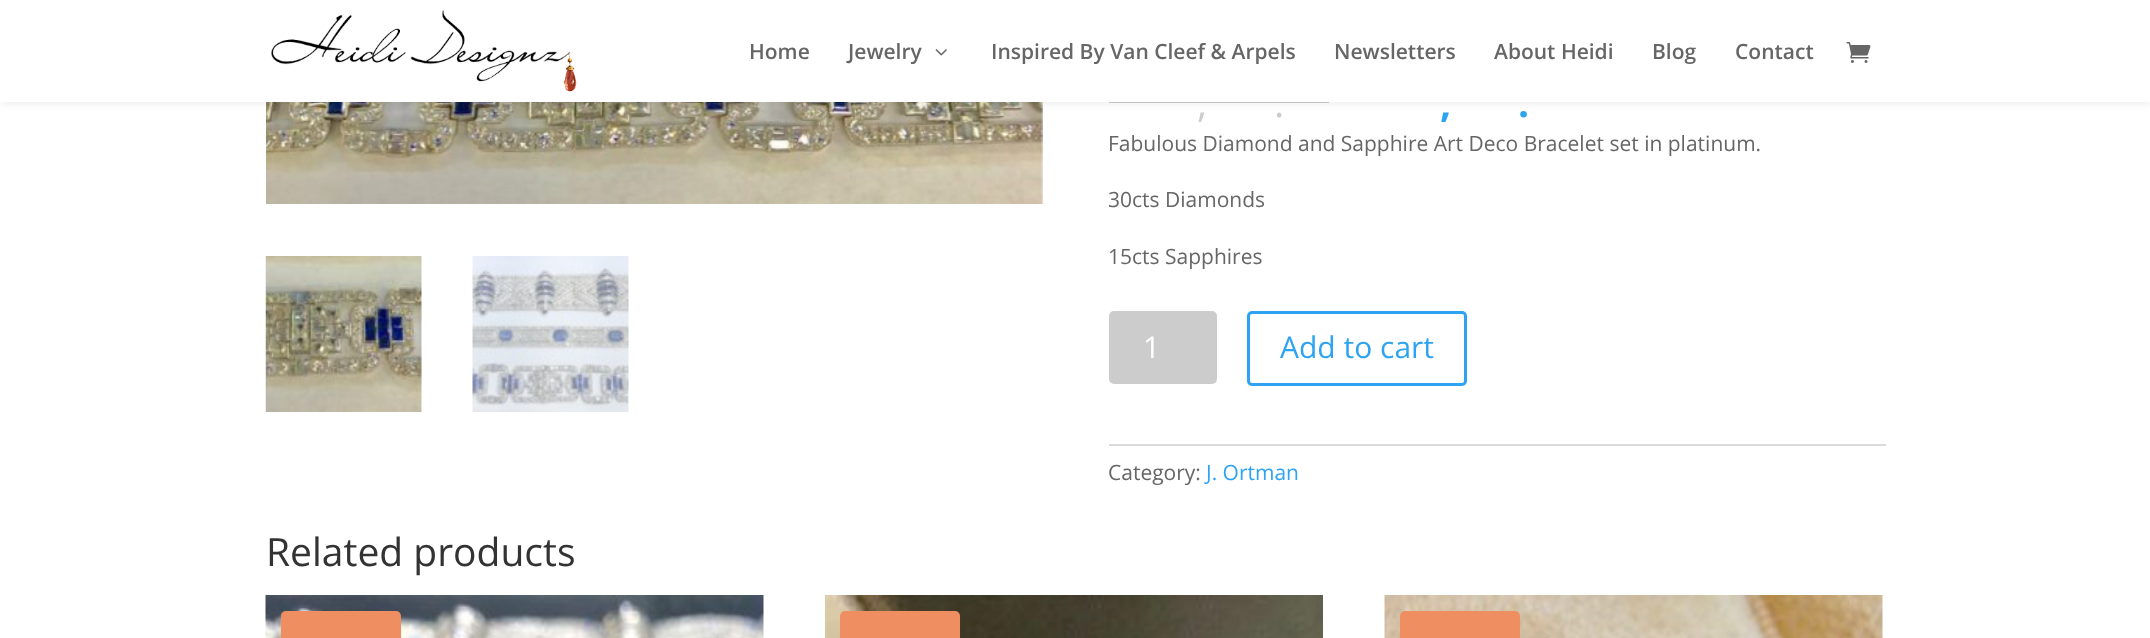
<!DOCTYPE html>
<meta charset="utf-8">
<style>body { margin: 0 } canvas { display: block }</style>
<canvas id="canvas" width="2150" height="638"></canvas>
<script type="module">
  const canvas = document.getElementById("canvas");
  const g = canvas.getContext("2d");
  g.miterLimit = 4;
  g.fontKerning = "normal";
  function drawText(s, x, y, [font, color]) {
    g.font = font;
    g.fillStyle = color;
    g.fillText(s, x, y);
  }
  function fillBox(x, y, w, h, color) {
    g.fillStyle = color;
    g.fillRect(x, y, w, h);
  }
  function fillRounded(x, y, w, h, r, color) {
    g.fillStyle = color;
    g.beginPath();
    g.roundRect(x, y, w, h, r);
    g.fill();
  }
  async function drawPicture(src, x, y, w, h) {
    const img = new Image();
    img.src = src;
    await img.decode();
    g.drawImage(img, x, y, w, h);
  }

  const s1 = ["600 21px Open Sans", "#666666"];
  const s2 = ["39px Open Sans", "#CCCCCC"];
  const s3 = ["bold 39px Open Sans", "#2EA3F2"];
  const s4 = ["21px Open Sans", "#666666"];
  const s5 = ["30px Open Sans", "#FFFFFF"];
  const s6 = ["30px Open Sans", "#2EA3F2"];
  const s7 = ["21px Open Sans", "#2EA3F2"];
  const s8 = ["39px Open Sans", "#333333"];

  fillBox(0, 0, 2150, 638, "#FFFFFF");
  await drawPicture("pic4.png", 266, 102, 777, 102);
  fillBox(1109, 102, 220, 1, "#CCCCCC");
  g.fillStyle = "rgba(0, 0, 0, 0.1)";
  g.filter = "blur(5px)";
  g.beginPath();
  g.rect(0, 0, 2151, 102);
  g.fill();
  g.filter = "none";
  fillBox(0, 0, 2150, 102, "#FFFFFF");
  await drawPicture("pic1.png", 271, 10, 306, 82);
  drawText("Home", 749, 59, s1);
  drawText("Jewelry", 848, 59, s1);
  await drawPicture("pic2.png", 935, 49, 12, 7);
  drawText("Inspired By Van Cleef & Arpels", 991, 59, s1);
  drawText("Newsletters", 1334, 59, s1);
  drawText("About Heidi", 1494, 59, s1);
  drawText("Blog", 1652, 59, s1);
  drawText("Contact", 1735, 59, s1);
  await drawPicture("pic3.png", 1846, 42, 25, 21);
  await drawPicture("pic5.png", 265, 256, 157, 156);
  await drawPicture("pic6.png", 472, 256, 157, 156);
  drawText(",", 1197, 117, s2);
  drawText(".", 1274, 117, s2);
  drawText(",", 1440, 117, s3);
  drawText(".", 1518, 117, s3);
  drawText("Fabulous Diamond and Sapphire Art Deco Bracelet set in platinum.", 1108, 151, s4);
  drawText("30cts Diamonds", 1108, 207, s4);
  drawText("15cts Sapphires", 1108, 264, s4);
  fillRounded(1109, 311, 108, 73, 5, "#CCCCCC");
  drawText("1", 1143, 358, s5);
  g.beginPath();
  g.roundRect(1248.5, 312.5, 217, 72, 3.5);
  g.strokeStyle = "#2EA3F2";
  g.lineWidth = 3;
  g.stroke();
  drawText("Add to cart", 1280, 358, s6);
  fillBox(1109, 444, 777, 2, "#DADADA");
  drawText("Category:", 1108, 480, s4);
  drawText("J. Ortman", 1206, 480, s7);
  drawText("Related products", 266, 566, s8);
  await drawPicture("pic7.png", 265, 595, 499, 43);
  fillRounded(281, 611, 120, 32, 5, "#EF8F61");
  await drawPicture("pic8.png", 825, 595, 498, 43);
  fillRounded(840, 611, 120, 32, 5, "#EF8F61");
  await drawPicture("pic9.png", 1384, 595, 499, 43);
  fillRounded(1400, 611, 120, 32, 5, "#EF8F61");
</script>
